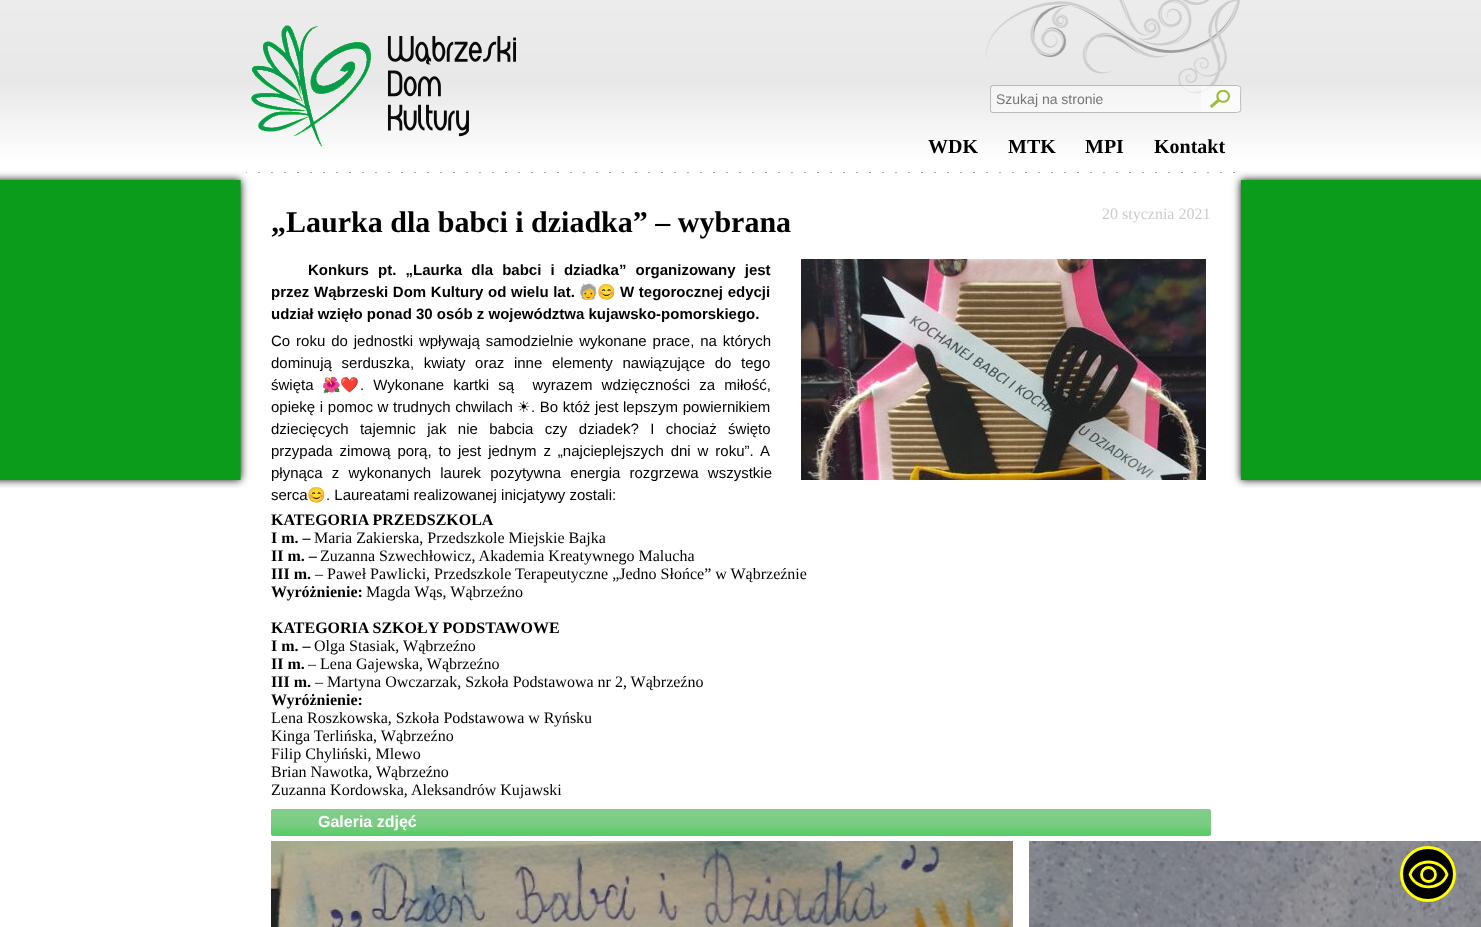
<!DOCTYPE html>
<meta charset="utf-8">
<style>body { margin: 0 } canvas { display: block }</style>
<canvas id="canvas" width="1481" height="927"></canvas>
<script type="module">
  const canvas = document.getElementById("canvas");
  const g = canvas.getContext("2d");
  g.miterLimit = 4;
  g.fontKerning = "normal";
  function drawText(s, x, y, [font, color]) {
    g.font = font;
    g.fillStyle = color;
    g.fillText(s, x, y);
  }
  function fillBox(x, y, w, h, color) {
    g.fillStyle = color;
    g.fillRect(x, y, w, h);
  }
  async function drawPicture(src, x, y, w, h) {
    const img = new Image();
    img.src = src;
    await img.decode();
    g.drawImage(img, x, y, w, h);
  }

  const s1 = ["14px Liberation Sans", "#757575"];
  const s2 = ["bold 20px Liberation Serif", "#000000"];
  const s3 = ["bold 30px Liberation Serif", "#000000"];
  const s4 = ["16px Liberation Serif", "#CCCCCC"];
  const s5 = ["bold 15px Liberation Sans", "#000000"];
  const s6 = ["bold 15px Noto Color Emoji", "#000000"];
  const s7 = ["15px Liberation Sans", "#000000"];
  const s8 = ["15px Noto Color Emoji", "#000000"];
  const s9 = ["15px DejaVu Sans", "#000000"];
  const s10 = ["bold 16px Liberation Serif", "#000000"];
  const s11 = ["16px Liberation Serif", "#000000"];
  const s12 = ["bold 16px Liberation Sans", "#FFFFFF"];

  fillBox(0, 0, 1481, 927, "#FFFFFF");
  await drawPicture("pic1.png", 0, 0, 1481, 488);
  await drawPicture("pic2.png", 251, 25, 265, 122);
  g.fillStyle = "rgba(255, 255, 255, 0.5)";
  g.beginPath();
  g.roundRect(990, 85, 211, 28, [3, 0, 0, 3]);
  g.fill();
  g.fillStyle = "#BBBBBB";
  g.beginPath();
  g.moveTo(993, 85);
  g.lineTo(1201, 85);
  g.lineTo(1201, 113);
  g.lineTo(993, 113);
  g.bezierCurveTo(991, 113, 990, 112, 990, 110);
  g.lineTo(990, 88);
  g.bezierCurveTo(990, 86, 991, 85, 993, 85);
  g.closePath();
  g.moveTo(993, 86);
  g.lineTo(1201, 86);
  g.lineTo(1201, 112);
  g.lineTo(993, 112);
  g.bezierCurveTo(992, 112, 991, 111, 991, 110);
  g.lineTo(991, 88);
  g.bezierCurveTo(991, 87, 992, 86, 993, 86);
  g.closePath();
  g.fill("evenodd");
  drawText("Szukaj na stronie", 996, 104, s1);
  g.fillStyle = "rgba(255, 255, 255, 0.75)";
  g.beginPath();
  g.roundRect(1201, 85, 40, 28, [0, 3, 3, 0]);
  g.fill();
  await drawPicture("pic3.png", 1210, 90, 20, 18);
  g.fillStyle = "#BBBBBB";
  g.beginPath();
  g.moveTo(1201, 85);
  g.lineTo(1232, 85);
  g.bezierCurveTo(1244, 85, 1241, 86, 1241, 99);
  g.bezierCurveTo(1241, 112, 1244, 113, 1232, 113);
  g.lineTo(1201, 113);
  g.closePath();
  g.moveTo(1201, 86);
  g.lineTo(1232, 86);
  g.bezierCurveTo(1243, 86, 1240, 86, 1240, 99);
  g.bezierCurveTo(1240, 112, 1243, 112, 1232, 112);
  g.lineTo(1201, 112);
  g.closePath();
  g.fill("evenodd");
  drawText("WDK", 928, 153, s2);
  drawText("MTK", 1008, 153, s2);
  drawText("MPI", 1085, 153, s2);
  drawText("Kontakt", 1154, 153, s2);
  await drawPicture("pic4.png", 246, 172, 989, 1);
  drawText("„Laurka dla babci i dziadka” – wybrana", 271, 232, s3);
  drawText("20 stycznia 2021", 1102, 219, s4);
  g.wordSpacing = "5px";
  drawText("Konkurs pt. „Laurka dla babci i dziadka” organizowany jest", 308, 275, s5);
  g.wordSpacing = "0.5px";
  drawText("przez Wąbrzeski Dom Kultury od wielu lat.", 271, 297, s5);
  g.wordSpacing = "0px";
  drawText("🧓😊", 579, 297, s6);
  g.wordSpacing = "0.5px";
  drawText("W tegorocznej edycji", 620, 297, s5);
  g.wordSpacing = "0px";
  drawText("udział wzięło ponad 30 osób z województwa kujawsko-pomorskiego.", 271, 319, s5);
  await drawPicture("pic5.png", 801, 259, 405, 221);
  g.wordSpacing = "1.75px";
  drawText("Co roku do jednostki wpływają samodzielnie wykonane prace, na których", 271, 346, s7);
  g.wordSpacing = "5.5px";
  drawText("dominują serduszka, kwiaty oraz inne elementy nawiązujące do tego", 271, 368, s7);
  g.wordSpacing = "0px";
  drawText("święta", 271, 390, s7);
  drawText("🌺❤️", 322, 390, s8);
  g.wordSpacing = "5px";
  drawText(". Wykonane kartki są  wyrazem wdzięczności za miłość,", 360, 390, s7);
  g.wordSpacing = "0.5px";
  drawText("opiekę i pomoc w trudnych chwilach", 271, 412, s7);
  g.wordSpacing = "0px";
  drawText("☀", 517, 412, s9);
  g.wordSpacing = "0.5px";
  drawText(". Bo któż jest lepszym powiernikiem", 531, 412, s7);
  g.wordSpacing = "7.25px";
  drawText("dziecięcych tajemnic jak nie babcia czy dziadek? I chociaż święto", 271, 434, s7);
  g.wordSpacing = "2.75px";
  drawText("przypada zimową porą, to jest jednym z „najcieplejszych dni w roku”.", 271, 456, s7);
  g.wordSpacing = "0px";
  drawText("A", 760, 456, s7);
  g.wordSpacing = "5px";
  drawText("płynąca z wykonanych laurek pozytywna energia rozgrzewa wszystkie", 271, 478, s7);
  g.wordSpacing = "0px";
  drawText("serca", 271, 500, s7);
  drawText("😊", 307, 500, s8);
  drawText(". Laureatami realizowanej inicjatywy zostali:", 326, 500, s7);
  drawText("KATEGORIA PRZEDSZKOLA", 271, 525, s10);
  drawText("I m. –", 271, 543, s10);
  drawText("Maria Zakierska, Przedszkole Miejskie Bajka", 314, 543, s11);
  drawText("II m. –", 271, 561, s10);
  drawText("Zuzanna Szwechłowicz, Akademia Kreatywnego Malucha", 320, 561, s11);
  drawText("III m.", 271, 579, s10);
  drawText("– Paweł Pawlicki, Przedszkole Terapeutyczne „Jedno Słońce” w Wąbrzeźnie", 315, 579, s11);
  drawText("Wyróżnienie:", 271, 597, s10);
  drawText("Magda Wąs, Wąbrzeźno", 366, 597, s11);
  drawText("KATEGORIA SZKOŁY PODSTAWOWE", 271, 633, s10);
  drawText("I m. –", 271, 651, s10);
  drawText("Olga Stasiak, Wąbrzeźno", 314, 651, s11);
  drawText("II m.", 271, 669, s10);
  drawText("– Lena Gajewska, Wąbrzeźno", 308, 669, s11);
  drawText("III m.", 271, 687, s10);
  drawText("– Martyna Owczarzak, Szkoła Podstawowa nr 2, Wąbrzeźno", 315, 687, s11);
  drawText("Wyróżnienie:", 271, 705, s10);
  drawText("Lena Roszkowska, Szkoła Podstawowa w Ryńsku", 271, 723, s11);
  drawText("Kinga Terlińska, Wąbrzeźno", 271, 741, s11);
  drawText("Filip Chyliński, Mlewo", 271, 759, s11);
  drawText("Brian Nawotka, Wąbrzeźno", 271, 777, s11);
  drawText("Zuzanna Kordowska, Aleksandrów Kujawski", 271, 795, s11);
  await drawPicture("pic6.png", 271, 809, 940, 27);
  drawText("Galeria zdjęć", 318, 827, s12);
  await drawPicture("pic7.png", 271, 841, 742, 86);
  await drawPicture("pic8.png", 1029, 841, 452, 86);
  g.fillStyle = "#000000";
  g.beginPath();
  g.arc(1428, 874, 26.5, 0, Math.PI * 2);
  g.fill();
  g.strokeStyle = "#FFFF00";
  g.lineWidth = 3;
  g.stroke();
  g.beginPath();
  g.moveTo(1428.5, 862);
  g.bezierCurveTo(1420, 862, 1412.5, 867, 1410, 874.5);
  g.bezierCurveTo(1416, 891, 1441, 891, 1447, 874.5);
  g.bezierCurveTo(1444.5, 867, 1437, 862, 1428.5, 862);
  g.closePath();
  g.lineWidth = 2.8;
  g.lineCap = "round";
  g.lineJoin = "round";
  g.stroke();
  g.beginPath();
  g.arc(1428.5, 874.5, 7, 0, Math.PI * 2);
  g.stroke();
</script>
